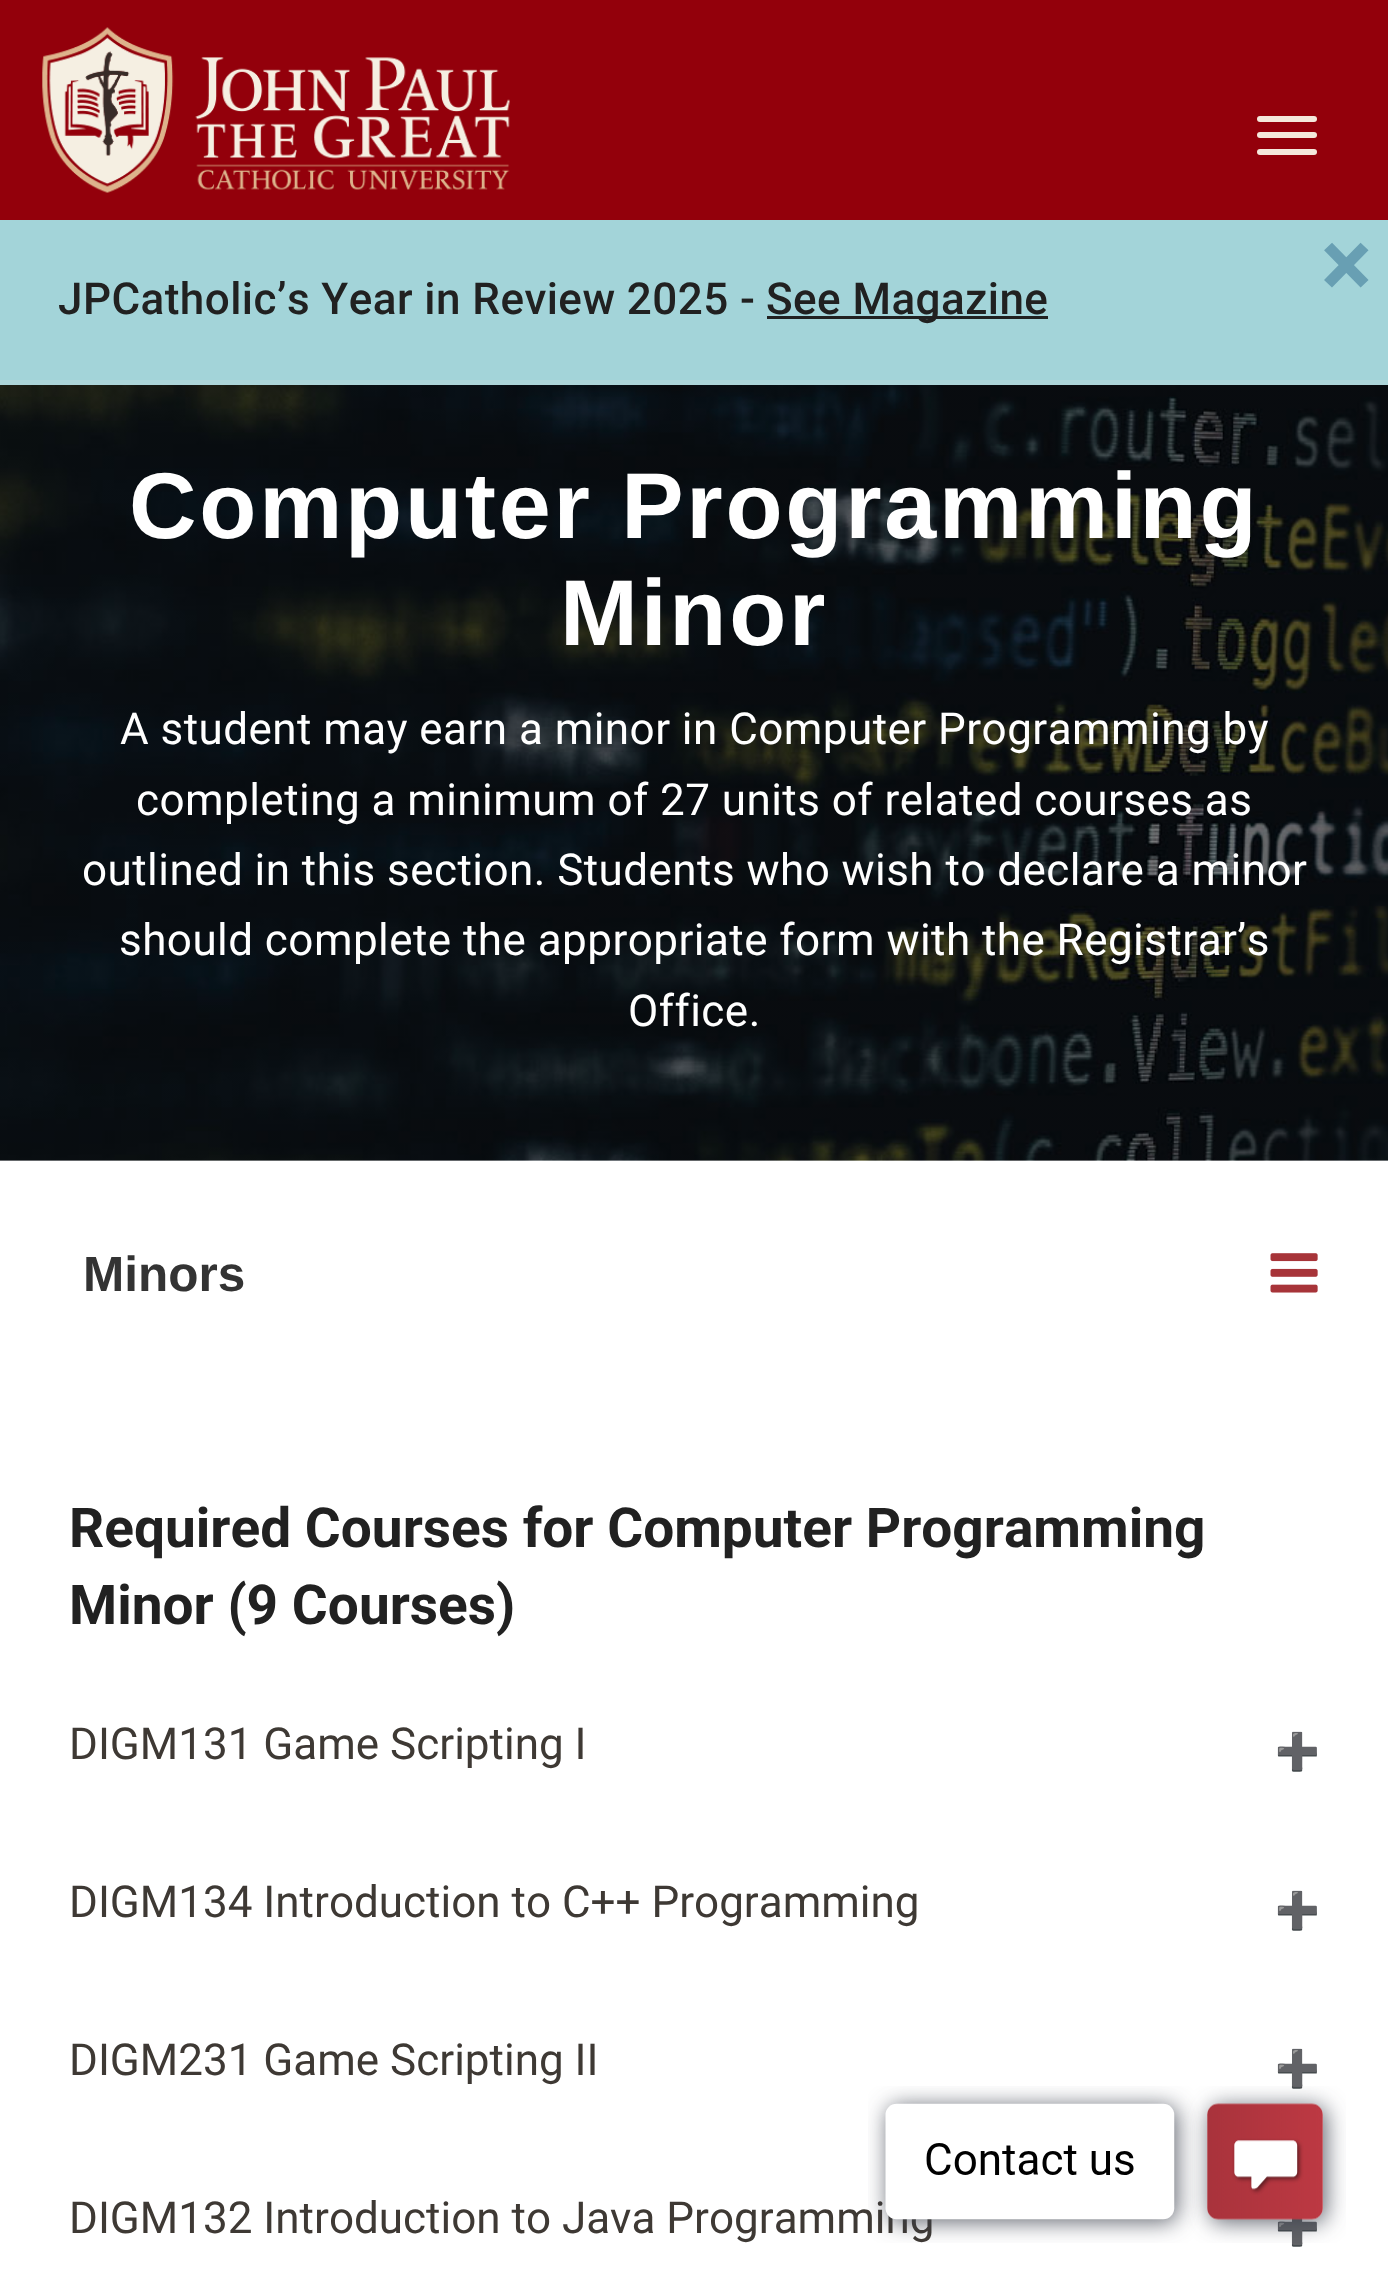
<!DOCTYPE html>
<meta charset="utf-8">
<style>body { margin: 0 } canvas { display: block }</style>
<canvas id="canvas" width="1388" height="2283"></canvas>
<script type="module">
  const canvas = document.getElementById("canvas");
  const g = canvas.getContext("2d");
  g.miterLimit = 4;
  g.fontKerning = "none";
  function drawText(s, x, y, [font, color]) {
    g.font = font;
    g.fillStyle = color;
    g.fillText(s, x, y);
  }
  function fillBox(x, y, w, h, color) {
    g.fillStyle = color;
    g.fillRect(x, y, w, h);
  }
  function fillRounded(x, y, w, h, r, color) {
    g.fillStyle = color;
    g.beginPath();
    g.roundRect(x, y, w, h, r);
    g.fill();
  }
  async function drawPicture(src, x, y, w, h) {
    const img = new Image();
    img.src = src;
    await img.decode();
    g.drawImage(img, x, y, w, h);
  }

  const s1 = ["bold 96px Roboto", "#689FB3"];
  const s2 = ["500 44px Roboto", "#212121"];
  const s3 = ["bold 93.5px Liberation Sans", "#FFFFFF"];
  const s4 = ["44px Roboto", "#FFFFFF"];
  const s5 = ["bold 49.5px Liberation Sans", "#333333"];
  const s6 = ["bold 55px Roboto", "#212121"];
  const s7 = ["44px Roboto", "#3E3934"];
  const s8 = ["36px Noto Color Emoji", "#777777"];

  fillBox(0, 0, 1388, 2283, "#FFFFFF");
  fillBox(0, 0, 1388, 220, "#93000B");
  await drawPicture("pic1.png", 42, 27, 468, 166);
  fillRounded(1257, 116, 60, 6, 3, "#F5E8DC");
  fillRounded(1257, 132, 60, 6, 3, "#F5E8DC");
  fillRounded(1257, 149, 60, 6, 3, "#F5E8DC");
  fillBox(0, 220, 1388, 160, "#A3D4D9");
  fillBox(0, 380, 1388, 5, "#ADD5D9");
  drawText("×", 1321, 297, s1);
  g.letterSpacing = "0.45px";
  drawText("JPCatholic’s Year in Review 2025 -", 58, 314, s2);
  fillBox(767, 316, 281, 3, "#212121");
  drawText("See Magazine", 766, 314, s2);
  await drawPicture("pic2.png", 0, 385, 1388, 776);
  g.letterSpacing = "2.75px";
  drawText("Computer Programming", 129, 538, s3);
  drawText("Minor", 560, 645, s3);
  g.letterSpacing = "0.45px";
  drawText("A student may earn a minor in Computer Programming by", 120, 744, s4);
  drawText("completing a minimum of 27 units of related courses as", 136, 815, s4);
  drawText("outlined in this section. Students who wish to declare a minor", 82, 885, s4);
  drawText("should complete the appropriate form with the Registrar’s", 119, 955, s4);
  drawText("Office.", 628, 1026, s4);
  g.letterSpacing = "0px";
  drawText("Minors", 83, 1291, s5);
  await drawPicture("pic3.png", 1270, 1253, 48, 40);
  drawText("Required Courses for Computer Programming", 69, 1547, s6);
  drawText("Minor (9 Courses)", 69, 1624, s6);
  drawText("DIGM131 Game Scripting I", 69, 1759, s7);
  drawText("➕", 1275, 1764, s8);
  drawText("DIGM134 Introduction to C++ Programming", 69, 1917, s7);
  drawText("➕", 1275, 1923, s8);
  drawText("DIGM231 Game Scripting II", 69, 2075, s7);
  drawText("➕", 1275, 2081, s8);
  drawText("DIGM132 Introduction to Java Programming", 69, 2233, s7);
  drawText("➕", 1275, 2239, s8);
  await drawPicture("pic4.png", 868, 2086, 478, 157);
</script>
